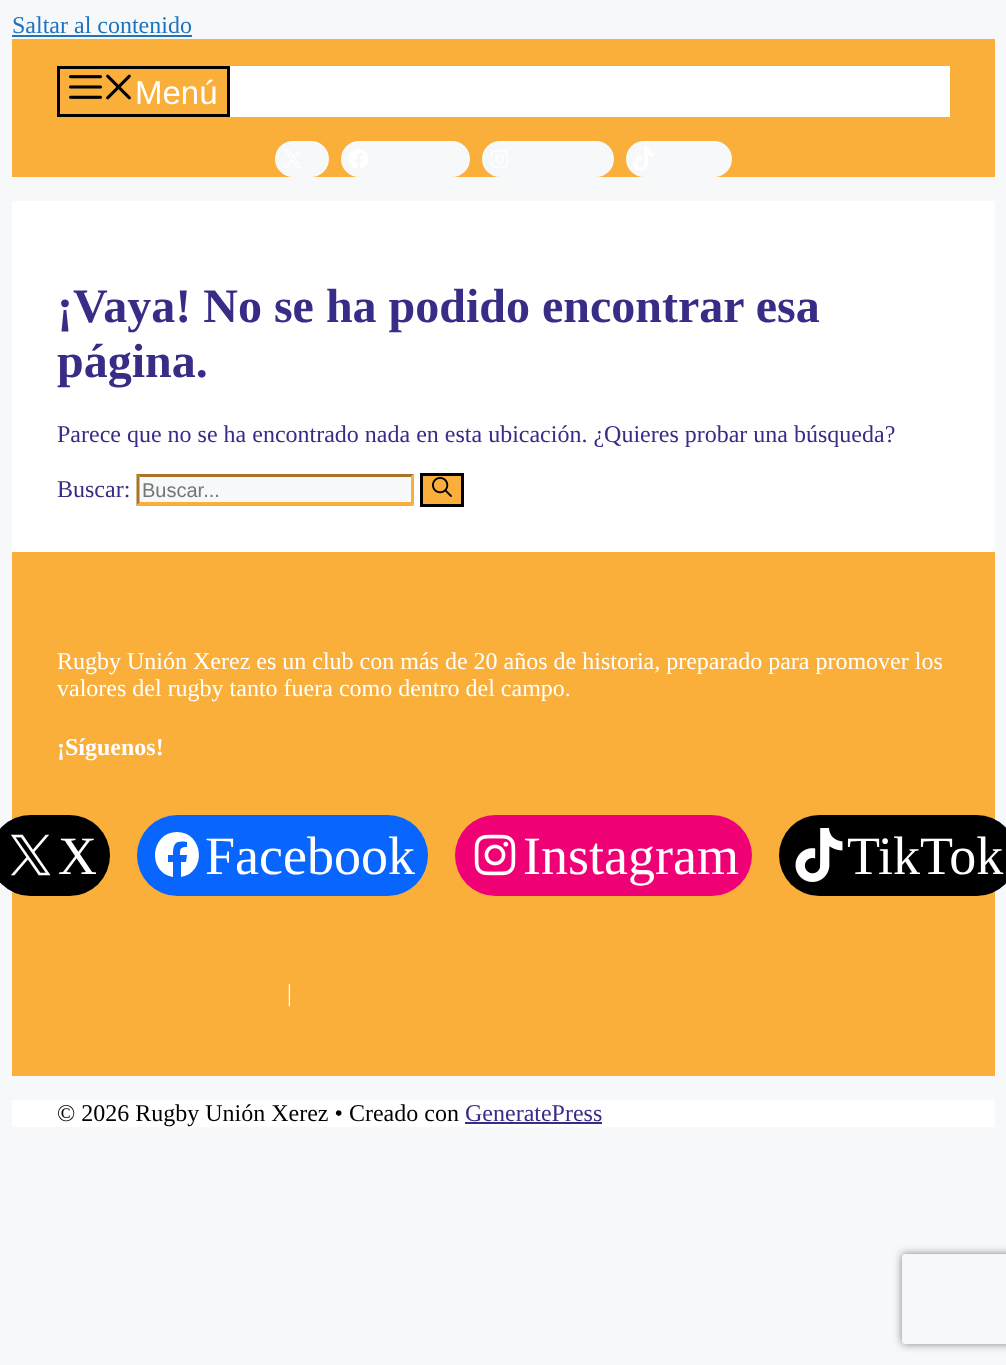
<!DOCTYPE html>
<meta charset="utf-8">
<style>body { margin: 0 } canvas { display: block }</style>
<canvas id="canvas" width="1006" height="1365"></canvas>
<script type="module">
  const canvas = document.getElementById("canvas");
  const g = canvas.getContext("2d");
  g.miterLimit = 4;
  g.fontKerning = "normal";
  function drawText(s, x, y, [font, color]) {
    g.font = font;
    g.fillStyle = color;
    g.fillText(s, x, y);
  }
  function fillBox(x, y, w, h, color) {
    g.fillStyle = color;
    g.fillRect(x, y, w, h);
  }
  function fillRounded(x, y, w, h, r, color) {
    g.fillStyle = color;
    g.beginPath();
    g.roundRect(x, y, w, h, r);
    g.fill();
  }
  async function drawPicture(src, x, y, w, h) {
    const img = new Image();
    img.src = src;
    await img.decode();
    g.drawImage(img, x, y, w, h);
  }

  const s1 = ["24px Liberation Serif", "#1E73BE"];
  const s2 = ["33px Liberation Sans", "#FFFFFF"];
  const s3 = ["bold 48px Liberation Serif", "#372D87"];
  const s4 = ["24px Liberation Serif", "#372D87"];
  const s5 = ["20px Liberation Sans", "#757575"];
  const s6 = ["24px Liberation Serif", "#FFFFFF"];
  const s7 = ["bold 24px Liberation Serif", "#FFFFFF"];
  const s8 = ["54px Liberation Serif", "#FFFFFF"];
  const s9 = ["24px Liberation Serif", "#000000"];

  fillBox(0, 0, 1006, 1365, "#F7F8F9");
  drawText("Saltar al contenido", 12, 33, s1);
  fillBox(12, 35, 180, 2, "#1E73BE");
  fillBox(12, 39, 983, 138, "#F9AF3A");
  fillBox(230, 66, 720, 51, "#FFFFFF");
  g.strokeStyle = "#000000";
  g.lineWidth = 3;
  g.strokeRect(58.5, 67.5, 170, 48);
  await drawPicture("pic1.png", 69, 75, 33, 24);
  await drawPicture("pic2.png", 106, 74, 25, 26);
  drawText("Menú", 135, 104, s2);
  fillRounded(275, 141, 54, 36, 18, "#F7F8F9");
  await drawPicture("pic3.png", 284, 150, 17, 18);
  fillRounded(341, 141, 129, 36, 18, "#F7F8F9");
  await drawPicture("pic4.png", 349, 149, 19, 20);
  fillRounded(482, 141, 132, 36, 18, "#F7F8F9");
  await drawPicture("pic5.png", 491, 150, 17, 18);
  fillRounded(626, 141, 106, 36, 18, "#F7F8F9");
  await drawPicture("pic6.png", 633, 147, 21, 24);
  fillBox(12, 201, 983, 351, "#FFFFFF");
  drawText("¡Vaya! No se ha podido encontrar esa", 57, 322, s3);
  drawText("página.", 57, 377, s3);
  drawText("Parece que no se ha encontrado nada en esta ubicación. ¿Quieres probar una búsqueda?", 57, 442, s4);
  drawText("Buscar:", 57, 497, s4);
  fillBox(137, 474, 277, 32, "#F7F8F9");
  g.fillStyle = "#A67527";
  g.beginPath();
  g.moveTo(136, 474);
  g.lineTo(414, 474);
  g.lineTo(411, 477);
  g.lineTo(140, 477);
  g.closePath();
  g.fill();
  g.fillStyle = "#F9AF3A";
  g.beginPath();
  g.moveTo(414, 474);
  g.lineTo(414, 505.5);
  g.lineTo(411, 502.5);
  g.lineTo(411, 477);
  g.closePath();
  g.fill();
  g.beginPath();
  g.moveTo(414, 506);
  g.lineTo(136, 506);
  g.lineTo(140, 502);
  g.lineTo(411, 502);
  g.closePath();
  g.fill();
  g.fillStyle = "#A67527";
  g.beginPath();
  g.moveTo(136.5, 505.5);
  g.lineTo(136.5, 474);
  g.lineTo(139.5, 477);
  g.lineTo(139.5, 502.5);
  g.closePath();
  g.fill();
  drawText("Buscar...", 142, 497, s5);
  g.fillStyle = "#F9AF3A";
  g.beginPath();
  g.rect(421.5, 474.5, 41, 31);
  g.fill();
  g.stroke();
  await drawPicture("pic7.png", 432, 477, 20, 20);
  fillBox(12, 552, 983, 524, "#F9AF3A");
  drawText("Rugby Unión Xerez es un club con más de 20 años de historia, preparado para promover los", 57, 669, s6);
  drawText("valores del rugby tanto fuera como dentro del campo.", 57, 696, s6);
  drawText("¡Síguenos!", 57, 755, s7);
  fillRounded(-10, 815, 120, 81, 40.5, "#000000");
  await drawPicture("pic8.png", 11, 834, 40, 42);
  drawText("X", 58, 874, s8);
  fillRounded(137, 815, 291, 81, 40.5, "#0866FF");
  g.fillStyle = "#FFFFFF";
  g.beginPath();
  g.moveTo(177, 832);
  g.bezierCurveTo(150, 832, 147, 873, 173, 877);
  g.lineTo(173, 862);
  g.lineTo(168, 862);
  g.lineTo(168, 855);
  g.lineTo(173, 855);
  g.bezierCurveTo(173, 844, 175, 840, 187, 842);
  g.lineTo(187, 847);
  g.bezierCurveTo(180, 847, 180, 849, 180, 855);
  g.lineTo(187, 855);
  g.lineTo(186, 862);
  g.lineTo(181, 862);
  g.lineTo(181, 877);
  g.bezierCurveTo(207, 873, 204, 832, 177, 832);
  g.closePath();
  g.fill();
  drawText("Facebook", 205, 874, s8);
  fillRounded(455, 815, 297, 81, 40.5, "#F00075");
  await drawPicture("pic9.png", 474, 834, 42, 42);
  drawText("Instagram", 523, 874, s8);
  fillRounded(779, 815, 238, 81, 40.5, "#000000");
  await drawPicture("pic10.png", 795, 828, 48, 54);
  drawText("TikTok", 847, 874, s8);
  drawText("|", 287, 1001, s6);
  fillBox(12, 1100, 983, 27, "#FFFFFF");
  drawText("© 2026 Rugby Unión Xerez • Creado con", 57, 1121, s9);
  drawText("GeneratePress", 465, 1121, s4);
  fillBox(465, 1122, 137, 2, "#372D87");
  g.save();
  g.beginPath();
  g.moveTo(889, 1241);
  g.lineTo(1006, 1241);
  g.lineTo(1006, 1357);
  g.lineTo(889, 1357);
  g.closePath();
  g.moveTo(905, 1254);
  g.lineTo(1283, 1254);
  g.bezierCurveTo(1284.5, 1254, 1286, 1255.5, 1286, 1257);
  g.lineTo(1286, 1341);
  g.bezierCurveTo(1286, 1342.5, 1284.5, 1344, 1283, 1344);
  g.lineTo(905, 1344);
  g.bezierCurveTo(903.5, 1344, 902, 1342.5, 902, 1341);
  g.lineTo(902, 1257);
  g.bezierCurveTo(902, 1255.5, 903.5, 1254, 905, 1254);
  g.closePath();
  g.clip("evenodd");
  g.fillStyle = "#808080";
  g.filter = "blur(4px)";
  g.beginPath();
  g.roundRect(902, 1254, 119, 90, 3);
  g.fill();
  g.filter = "none";
  g.restore();
</script>
